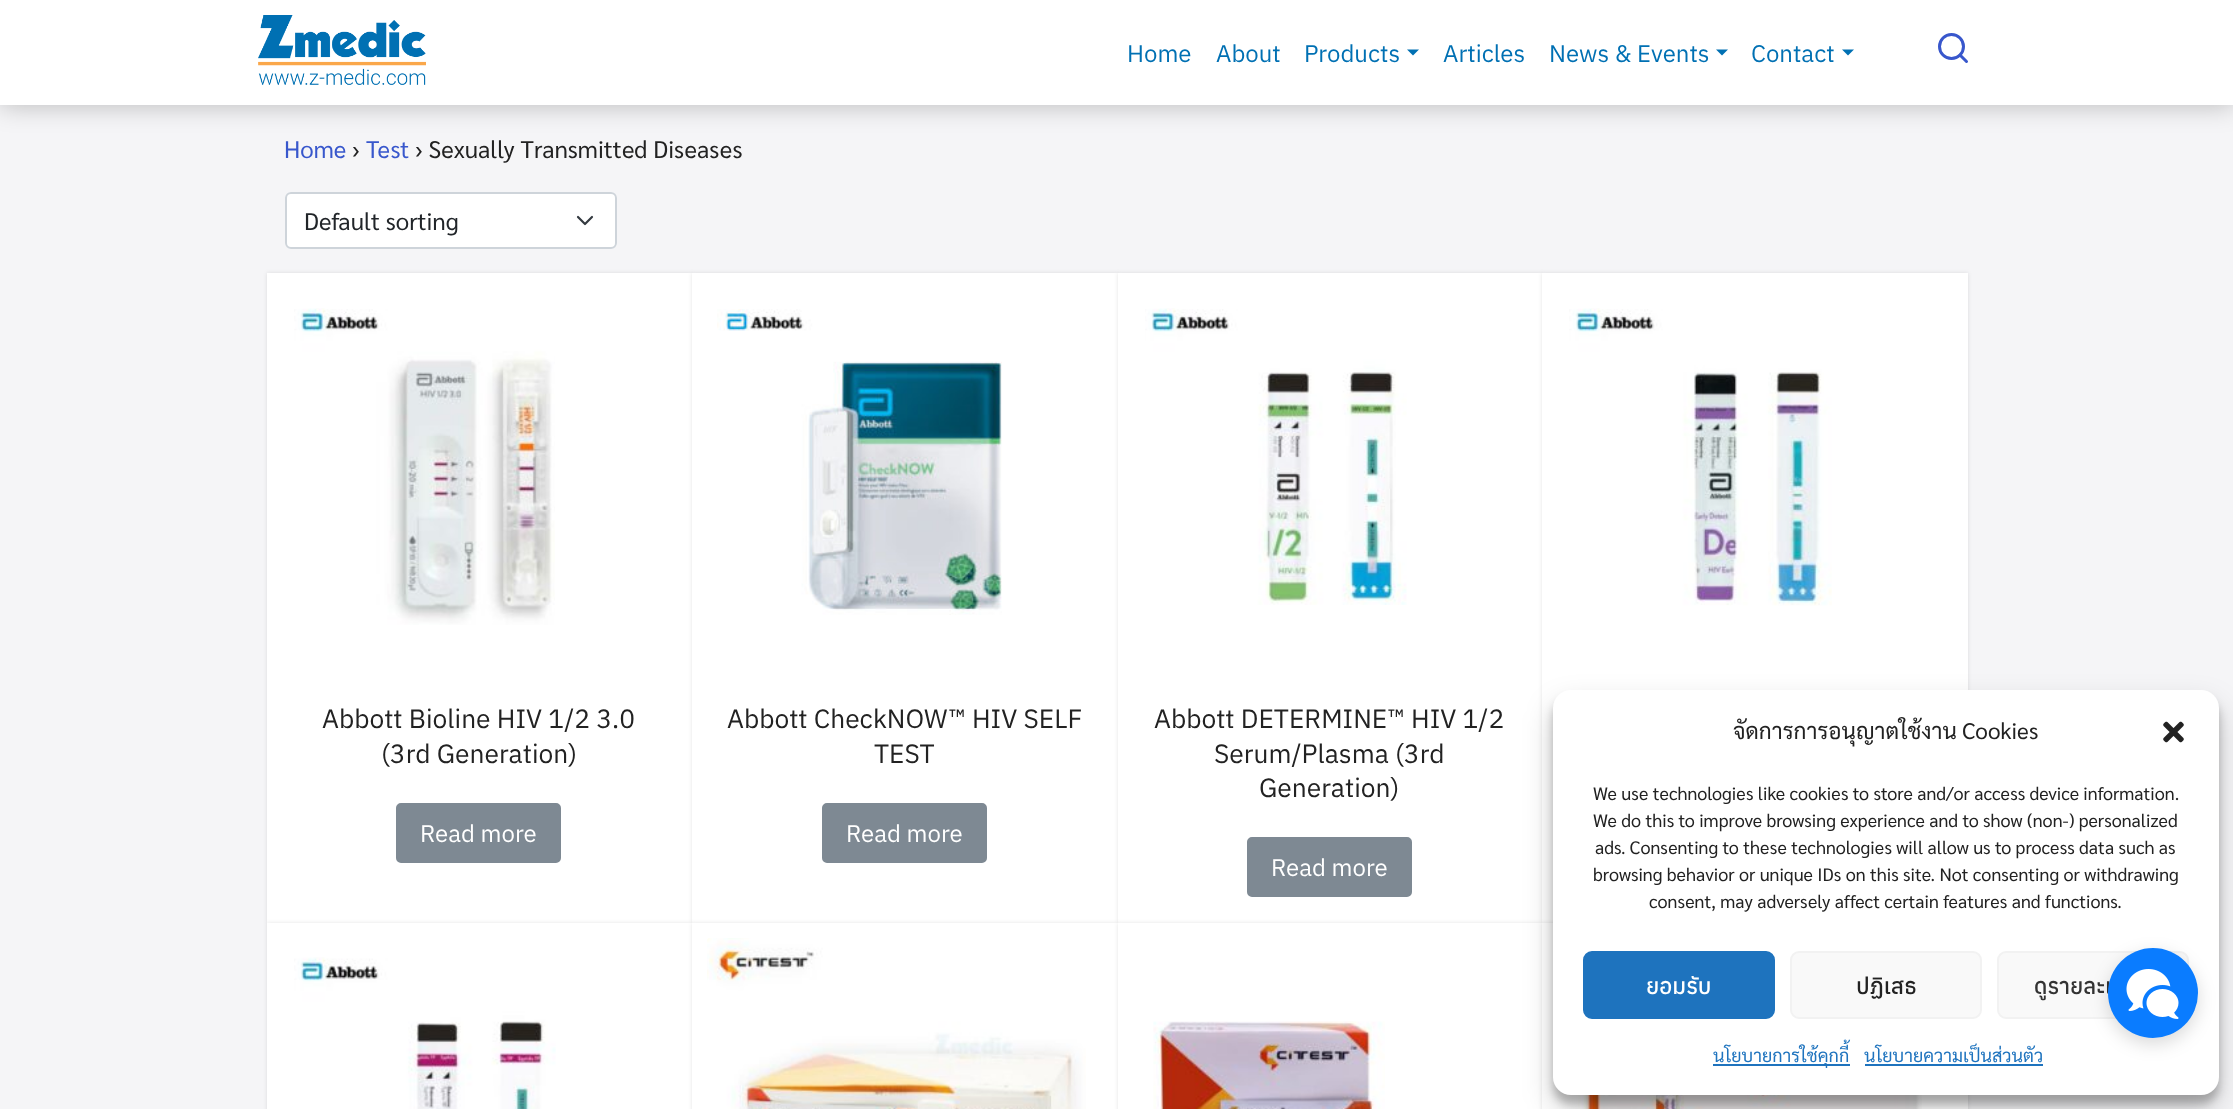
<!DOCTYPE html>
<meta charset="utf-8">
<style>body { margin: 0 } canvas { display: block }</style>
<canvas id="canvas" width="2233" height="1109"></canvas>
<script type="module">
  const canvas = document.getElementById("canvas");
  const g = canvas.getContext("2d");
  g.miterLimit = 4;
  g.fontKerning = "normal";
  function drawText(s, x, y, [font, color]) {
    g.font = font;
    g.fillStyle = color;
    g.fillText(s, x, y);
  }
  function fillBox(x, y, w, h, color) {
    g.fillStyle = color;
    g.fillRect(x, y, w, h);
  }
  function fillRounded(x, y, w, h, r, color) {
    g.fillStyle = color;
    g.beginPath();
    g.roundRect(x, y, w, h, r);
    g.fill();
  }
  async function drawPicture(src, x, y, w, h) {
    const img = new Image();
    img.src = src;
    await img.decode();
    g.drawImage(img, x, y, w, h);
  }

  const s1 = ["24px Anuphan", "#0070B3"];
  const s2 = ["24px Sarabun", "#3857CC"];
  const s3 = ["24px Sarabun", "#222222"];
  const s4 = ["24px Sarabun", "#212529"];
  const s5 = ["26.4px Anuphan", "#222222"];
  const s6 = ["24px Anuphan", "#FFFFFF"];
  const s7 = ["22.5px Sarabun", "#222222"];
  const s8 = ["18px Sarabun", "#222222"];
  const s9 = ["500 22.5px Anuphan", "#FFFFFF"];
  const s10 = ["500 22.5px Anuphan", "#222222"];
  const s11 = ["500 22.5px Anuphan", "#333333"];
  const s12 = ["18px Sarabun", "#1E73BE"];

  fillBox(0, 0, 2233, 1109, "#F5F5F7");
  g.fillStyle = "rgba(0, 0, 0, 0.25)";
  g.filter = "blur(13.5px)";
  g.beginPath();
  g.rect(0, 0, 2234, 105);
  g.fill();
  g.filter = "none";
  fillBox(0, 0, 2233, 105, "#FFFFFF");
  await drawPicture("pic1.png", 258, 15, 168, 70);
  drawText("Home", 1127, 62, s1);
  drawText("About", 1216, 62, s1);
  drawText("Products", 1304, 62, s1);
  g.beginPath();
  g.moveTo(1407, 49.5);
  g.lineTo(1419, 49.5);
  g.lineTo(1413, 55.5);
  g.closePath();
  g.fill();
  drawText("Articles", 1443, 62, s1);
  drawText("News & Events", 1549, 62, s1);
  g.beginPath();
  g.moveTo(1716, 49.5);
  g.lineTo(1728, 49.5);
  g.lineTo(1722, 55.5);
  g.closePath();
  g.fill();
  drawText("Contact", 1751, 62, s1);
  g.beginPath();
  g.moveTo(1842, 49.5);
  g.lineTo(1854, 49.5);
  g.lineTo(1848, 55.5);
  g.closePath();
  g.fill();
  g.beginPath();
  g.arc(1951.5, 46.5, 12, 0, Math.PI * 2);
  g.strokeStyle = "#3857CC";
  g.lineWidth = 3;
  g.stroke();
  g.beginPath();
  g.moveTo(1966.5, 61.5);
  g.lineTo(1960, 55);
  g.lineCap = "round";
  g.lineJoin = "round";
  g.stroke();
  drawText("Home", 284, 158, s2);
  drawText("›", 352, 158, s3);
  drawText("Test", 366, 158, s2);
  drawText("› Sexually Transmitted Diseases", 415, 158, s3);
  fillRounded(285, 192, 332, 57, 6, "#FFFFFF");
  g.beginPath();
  g.moveTo(578, 217);
  g.lineTo(585, 224);
  g.lineTo(592, 217);
  g.strokeStyle = "#343A40";
  g.lineWidth = 2.2;
  g.stroke();
  g.beginPath();
  g.roundRect(286, 193, 330, 55, 5);
  g.strokeStyle = "#CED4DA";
  g.lineWidth = 2;
  g.lineJoin = "miter";
  g.stroke();
  drawText("Default sorting", 304, 230, s4);
  g.fillStyle = "rgba(0, 0, 0, 0.1)";
  g.filter = "blur(2px)";
  g.beginPath();
  g.rect(267, 273, 425, 650);
  g.fill();
  g.filter = "none";
  fillBox(267, 273, 425, 650, "#FFFFFF");
  await drawPicture("pic2.png", 294, 308, 261, 317);
  drawText("Abbott Bioline HIV 1/2 3.0", 322, 728, s5);
  drawText("(3rd Generation)", 381, 763, s5);
  g.fillStyle = "#7E8993";
  g.beginPath();
  g.roundRect(397, 804, 163, 58, 4);
  g.fill();
  g.strokeStyle = "#7E8993";
  g.stroke();
  drawText("Read more", 420, 842, s6);
  g.fillStyle = "rgba(0, 0, 0, 0.1)";
  g.filter = "blur(2px)";
  g.beginPath();
  g.rect(692, 273, 426, 650);
  g.fill();
  g.filter = "none";
  fillBox(692, 273, 426, 650, "#FFFFFF");
  await drawPicture("pic3.png", 717, 309, 285, 306);
  drawText("Abbott CheckNOW™ HIV SELF", 727, 728, s5);
  drawText("TEST", 874, 763, s5);
  g.fillStyle = "#7E8993";
  g.beginPath();
  g.roundRect(823, 804, 163, 58, 4);
  g.fill();
  g.stroke();
  drawText("Read more", 846, 842, s6);
  g.fillStyle = "rgba(0, 0, 0, 0.1)";
  g.filter = "blur(2px)";
  g.beginPath();
  g.rect(1118, 273, 424, 650);
  g.fill();
  g.filter = "none";
  fillBox(1118, 273, 424, 650, "#FFFFFF");
  await drawPicture("pic4.png", 1145, 308, 262, 297);
  drawText("Abbott DETERMINE™ HIV 1/2", 1154, 728, s5);
  drawText("Serum/Plasma (3rd", 1214, 763, s5);
  drawText("Generation)", 1259, 797, s5);
  g.fillStyle = "#7E8993";
  g.beginPath();
  g.roundRect(1248, 838, 163, 58, 4);
  g.fill();
  g.stroke();
  drawText("Read more", 1271, 876, s6);
  g.fillStyle = "rgba(0, 0, 0, 0.1)";
  g.filter = "blur(2px)";
  g.beginPath();
  g.rect(1542, 273, 426, 650);
  g.fill();
  g.filter = "none";
  fillBox(1542, 273, 426, 650, "#FFFFFF");
  await drawPicture("pic5.png", 1569, 308, 263, 298);
  g.fillStyle = "rgba(0, 0, 0, 0.1)";
  g.filter = "blur(2px)";
  g.beginPath();
  g.rect(267, 923, 425, 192);
  g.fill();
  g.filter = "none";
  fillBox(267, 923, 425, 186, "#FFFFFF");
  await drawPicture("pic6.png", 294, 957, 262, 152);
  g.fillStyle = "rgba(0, 0, 0, 0.1)";
  g.filter = "blur(2px)";
  g.beginPath();
  g.rect(692, 923, 426, 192);
  g.fill();
  g.filter = "none";
  fillBox(692, 923, 426, 186, "#FFFFFF");
  await drawPicture("pic7.png", 707, 938, 379, 171);
  g.fillStyle = "rgba(0, 0, 0, 0.1)";
  g.filter = "blur(2px)";
  g.beginPath();
  g.rect(1118, 923, 424, 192);
  g.fill();
  g.filter = "none";
  fillBox(1118, 923, 424, 186, "#FFFFFF");
  await drawPicture("pic8.png", 1153, 1021, 232, 88);
  g.fillStyle = "rgba(0, 0, 0, 0.1)";
  g.filter = "blur(2px)";
  g.beginPath();
  g.rect(1542, 923, 426, 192);
  g.fill();
  g.filter = "none";
  fillBox(1542, 923, 426, 186, "#FFFFFF");
  await drawPicture("pic9.png", 1557, 1088, 365, 21);
  g.fillStyle = "rgba(0, 0, 0, 0.23)";
  g.filter = "blur(4.5px)";
  g.beginPath();
  g.roundRect(1553, 699, 666, 405, 18);
  g.fill();
  g.filter = "none";
  g.fillStyle = "rgba(0, 0, 0, 0.19)";
  g.filter = "blur(15px)";
  g.beginPath();
  g.roundRect(1553, 705, 666, 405, 18);
  g.fill();
  g.filter = "none";
  fillRounded(1553, 690, 666, 405, 18, "#FFFFFF");
  drawText("จัดการการอนุญาตใช้งาน Cookies", 1733, 739, s7);
  await drawPicture("pic10.png", 2163, 721, 21, 22);
  drawText("We use technologies like cookies to store and/or access device information.", 1593, 800, s8);
  drawText("We do this to improve browsing experience and to show (non-) personalized", 1593, 827, s8);
  drawText("ads. Consenting to these technologies will allow us to process data such as", 1595, 854, s8);
  drawText("browsing behavior or unique IDs on this site. Not consenting or withdrawing", 1593, 881, s8);
  drawText("consent, may adversely affect certain features and functions.", 1649, 908, s8);
  g.fillStyle = "#1E73BE";
  g.beginPath();
  g.roundRect(1584, 952, 190, 66, 8);
  g.fill();
  g.strokeStyle = "#1E73BE";
  g.stroke();
  drawText("ยอมรับ", 1646, 994, s9);
  g.fillStyle = "#F9F9F9";
  g.beginPath();
  g.roundRect(1791, 952, 190, 66, 8);
  g.fill();
  g.strokeStyle = "#F2F2F2";
  g.stroke();
  drawText("ปฏิเสธ", 1856, 994, s10);
  g.fillStyle = "#F9F9F9";
  g.beginPath();
  g.roundRect(1998, 952, 190, 66, 8);
  g.fill();
  g.stroke();
  drawText("ดูรายละเ", 2034, 994, s11);
  fillBox(1713, 1064, 137, 2, "#1E73BE");
  drawText("นโยบายการใช้คุกกี้", 1713, 1062, s12);
  drawText("นโยบายความเป็นส่วนตัว", 1864, 1062, s12);
  fillBox(1865, 1064, 178, 2, "#1E73BE");
  g.fillStyle = "rgba(0, 0, 0, 0.15)";
  g.filter = "blur(9px)";
  g.beginPath();
  g.roundRect(2108, 954, 90, 90, 45);
  g.fill();
  g.filter = "none";
  g.fillStyle = "#0A7CFF";
  g.beginPath();
  g.arc(2153, 993, 45, 0, Math.PI * 2);
  g.fill();
  await drawPicture("pic11.png", 2126, 969, 53, 50);
</script>
